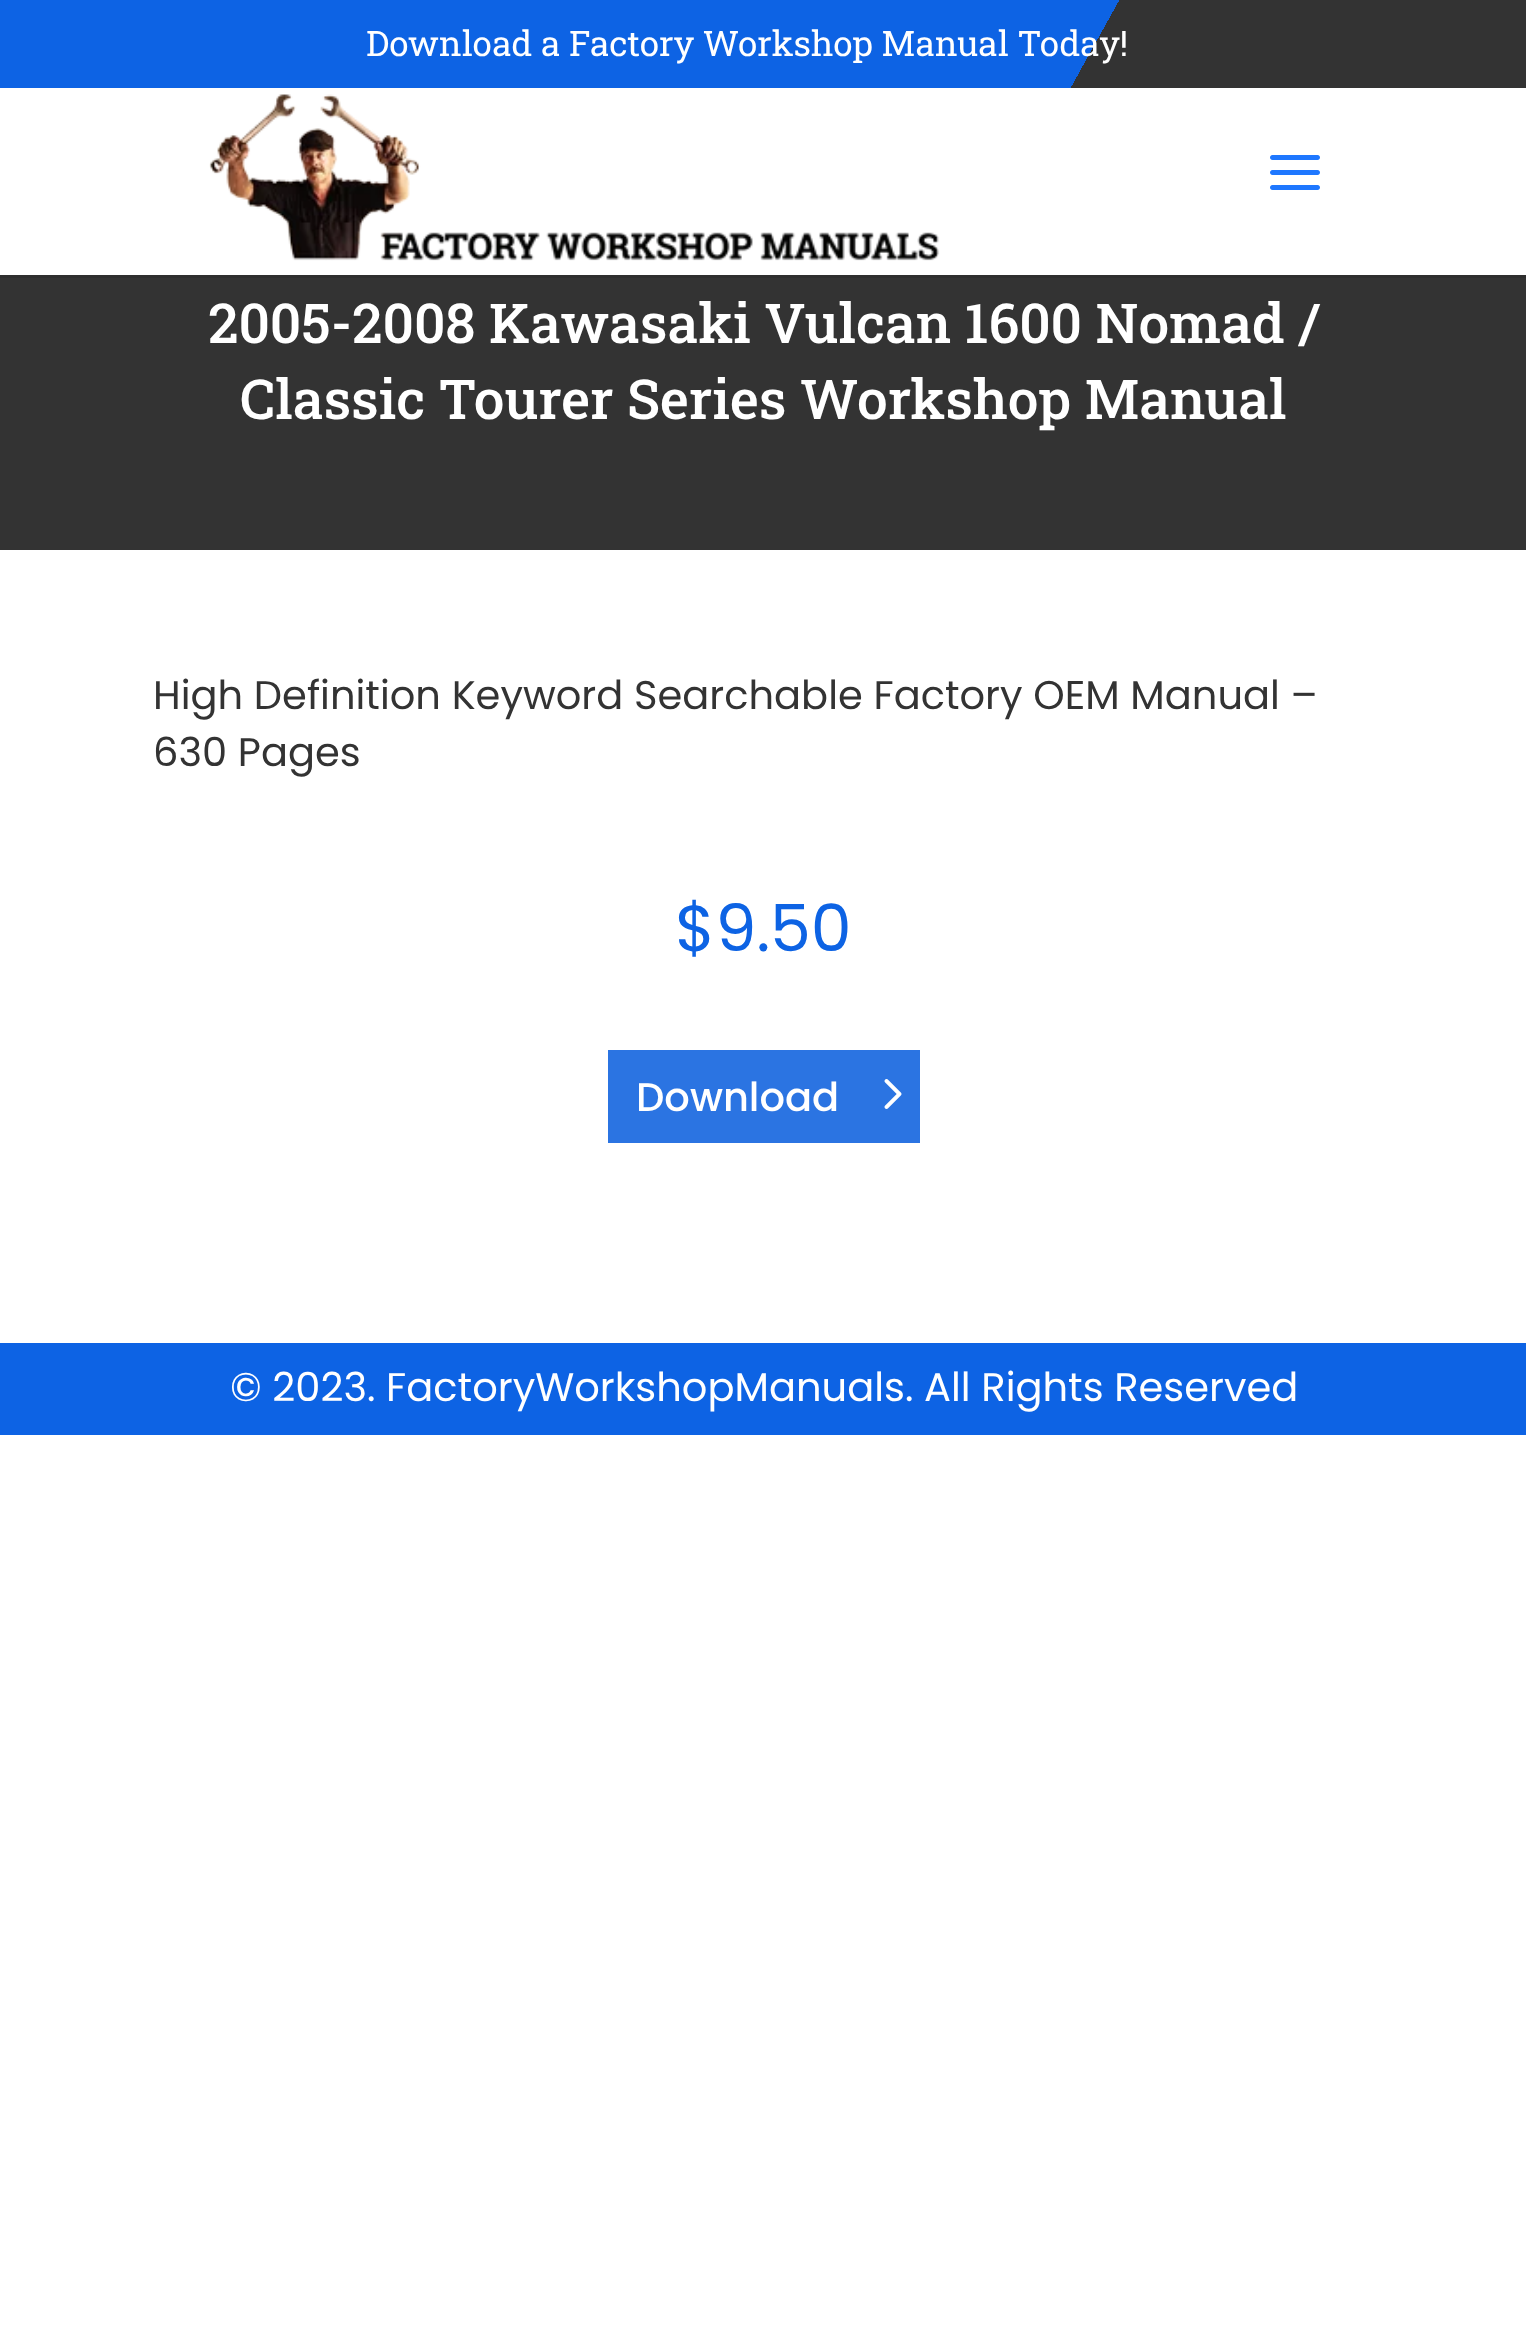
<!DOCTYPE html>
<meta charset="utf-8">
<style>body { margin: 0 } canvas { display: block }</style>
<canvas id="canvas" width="1526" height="2341"></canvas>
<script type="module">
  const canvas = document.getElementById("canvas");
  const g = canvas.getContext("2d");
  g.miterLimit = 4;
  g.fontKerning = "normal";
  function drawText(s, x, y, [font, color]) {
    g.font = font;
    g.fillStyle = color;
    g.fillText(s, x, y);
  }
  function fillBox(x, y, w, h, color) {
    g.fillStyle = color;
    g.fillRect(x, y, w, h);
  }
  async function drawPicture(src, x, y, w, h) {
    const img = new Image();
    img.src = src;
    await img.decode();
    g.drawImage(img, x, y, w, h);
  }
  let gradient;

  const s1 = ["35px Roboto Slab", "#FFFFFF"];
  const s2 = ["500 55px Roboto Slab", "#FFFFFF"];
  const s3 = ["40px Poppins", "#333333"];
  const s4 = ["65px Poppins", "#0D63E4"];
  const s5 = ["500 40px Poppins", "#FFFFFF"];
  const s6 = ["40px Poppins", "#FFFFFF"];

  fillBox(0, 0, 1526, 2341, "#FFFFFF");
  gradient = g.createLinearGradient(161, -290, 1367, 378);
  gradient.addColorStop(0.71, "#0D63E4");
  gradient.addColorStop(0.71, "#333333");
  g.fillStyle = gradient;
  g.fillRect(0, 0, 1526, 88);
  drawText("Download a Factory Workshop Manual Today!", 366, 56, s1);
  g.fillStyle = "#2E2E2E";
  g.beginPath();
  g.moveTo(0, 275);
  g.lineTo(0, 278);
  g.lineTo(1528, 278);
  g.lineTo(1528, 78);
  g.lineTo(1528, 275);
  g.closePath();
  g.fill();
  await drawPicture("pic1.png", 209, 94, 731, 167);
  await drawPicture("pic2.png", 1270, 155, 50, 35);
  fillBox(0, 278, 1526, 272, "#333333");
  drawText("2005-2008 Kawasaki Vulcan 1600 Nomad /", 208, 343, s2);
  drawText("Classic Tourer Series Workshop Manual", 240, 419, s2);
  drawText("High Definition Keyword Searchable Factory OEM Manual –", 153, 709, s3);
  drawText("630 Pages", 153, 766, s3);
  drawText("$9.50", 675, 951, s4);
  fillBox(608, 1050, 312, 93, "#2B74E2");
  drawText("Download", 636, 1111, s5);
  await drawPicture("pic3.png", 884, 1079, 18, 30);
  fillBox(0, 1343, 1526, 92, "#0D63E4");
  drawText("© 2023. FactoryWorkshopManuals. All Rights Reserved", 230, 1401, s6);
</script>
